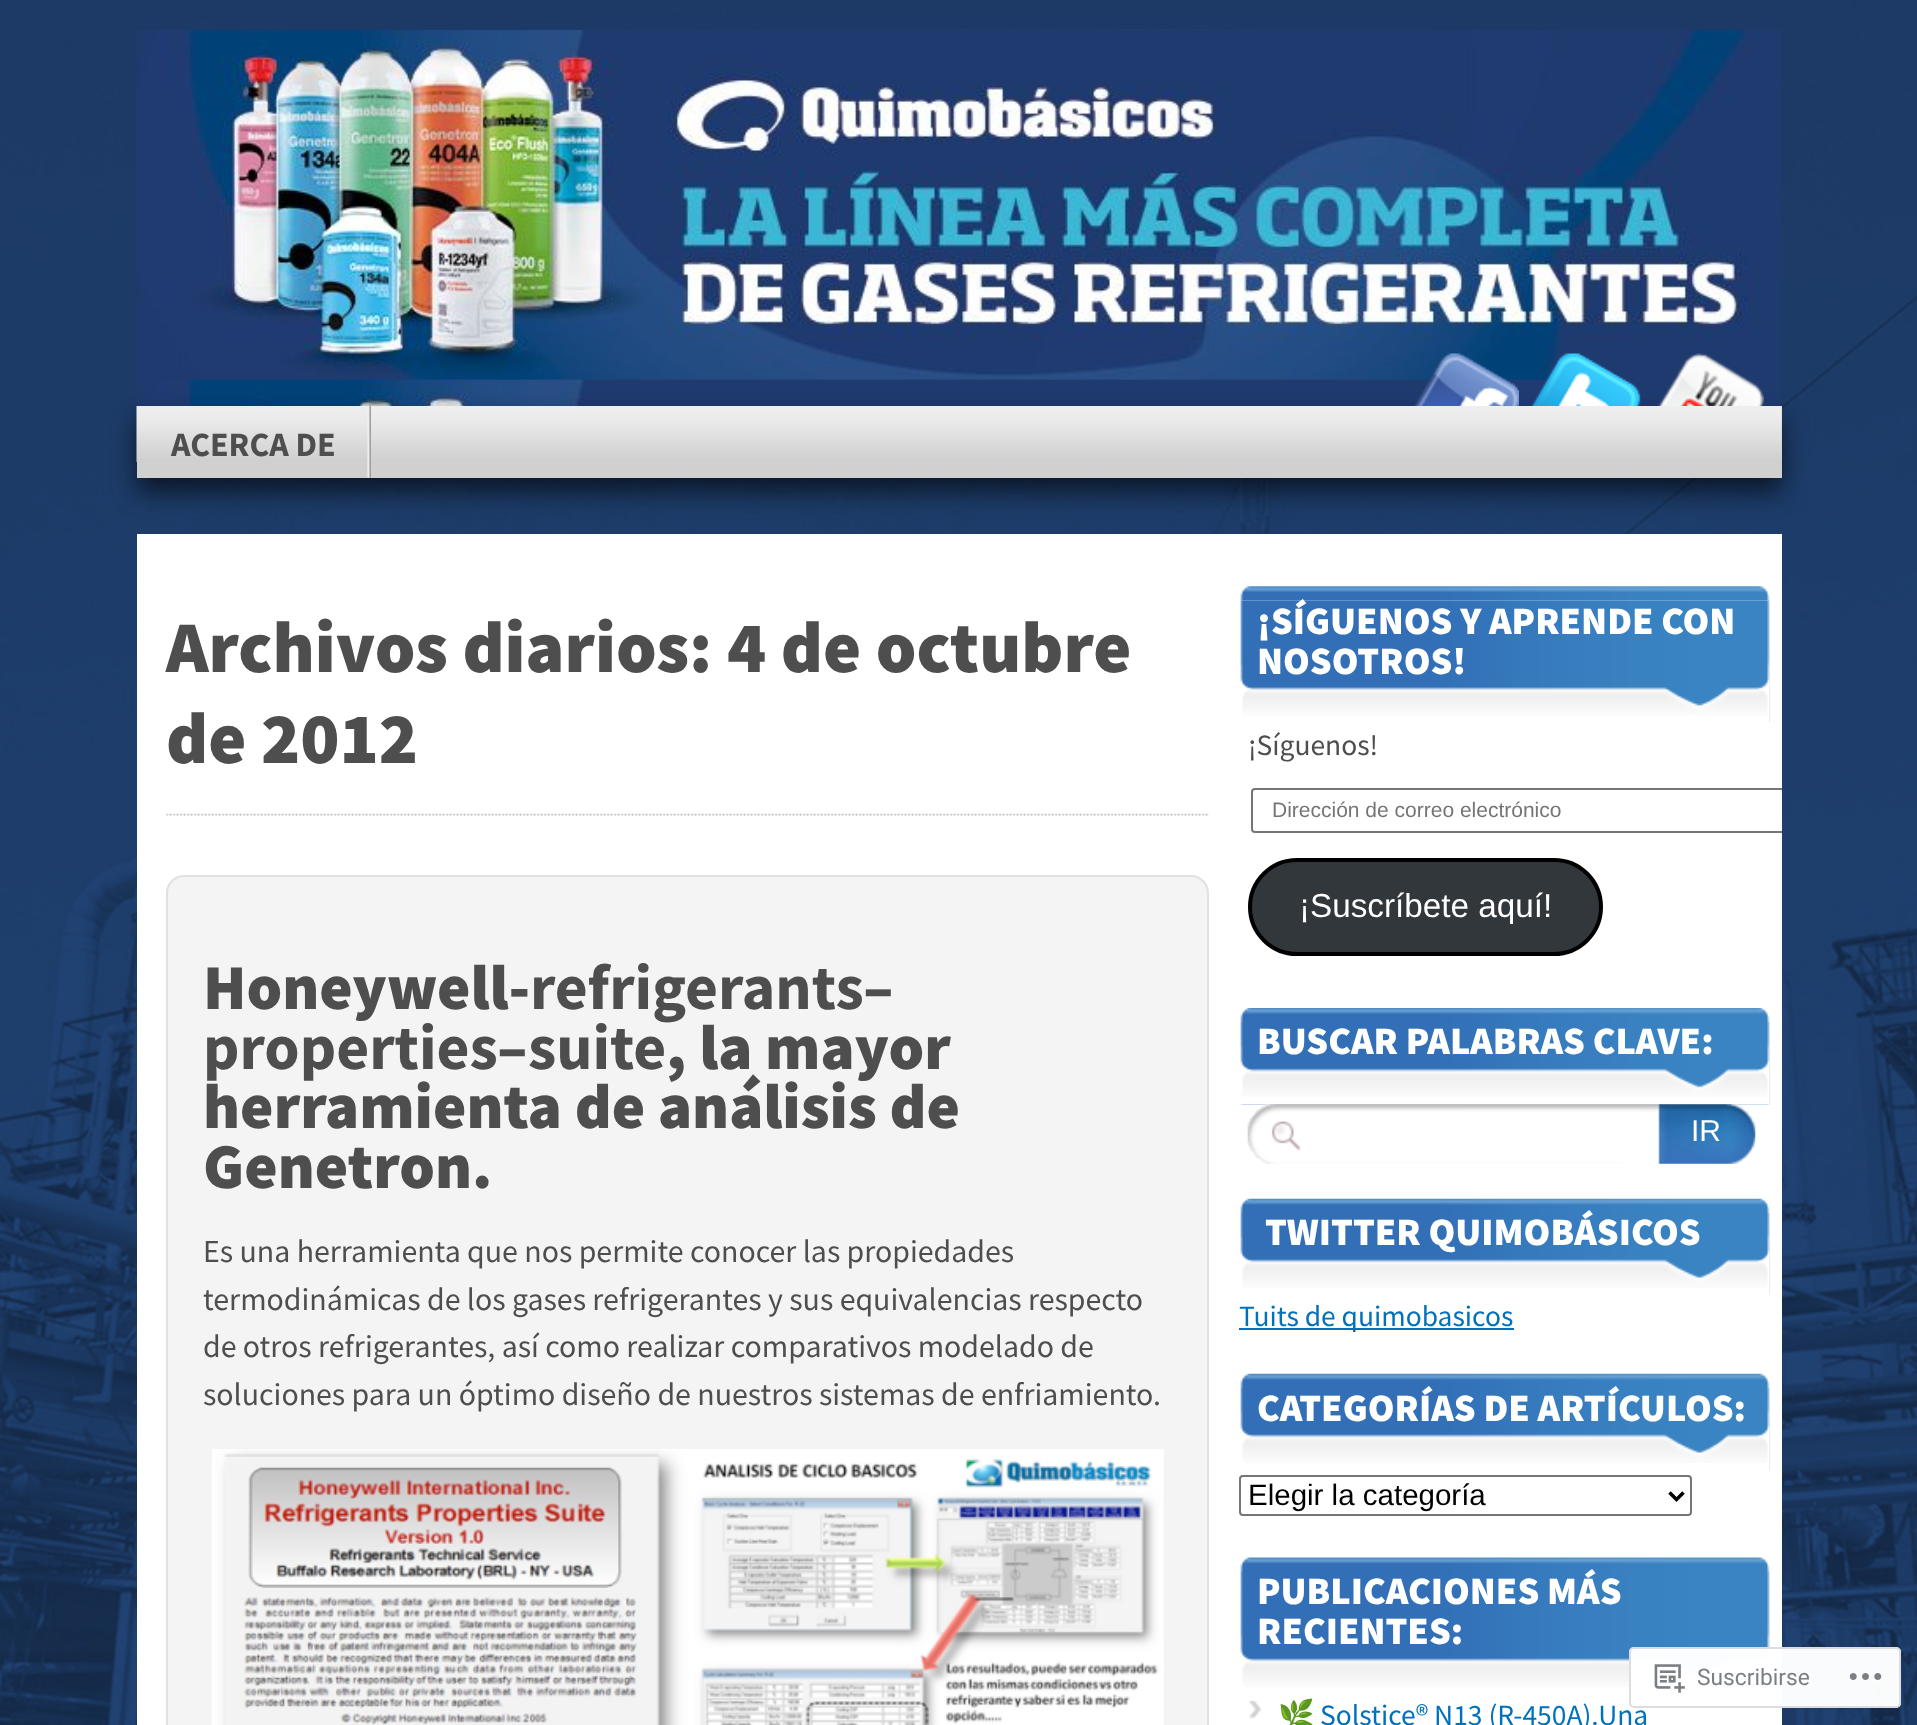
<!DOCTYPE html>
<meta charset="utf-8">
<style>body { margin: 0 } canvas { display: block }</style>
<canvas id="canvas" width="1917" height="1725"></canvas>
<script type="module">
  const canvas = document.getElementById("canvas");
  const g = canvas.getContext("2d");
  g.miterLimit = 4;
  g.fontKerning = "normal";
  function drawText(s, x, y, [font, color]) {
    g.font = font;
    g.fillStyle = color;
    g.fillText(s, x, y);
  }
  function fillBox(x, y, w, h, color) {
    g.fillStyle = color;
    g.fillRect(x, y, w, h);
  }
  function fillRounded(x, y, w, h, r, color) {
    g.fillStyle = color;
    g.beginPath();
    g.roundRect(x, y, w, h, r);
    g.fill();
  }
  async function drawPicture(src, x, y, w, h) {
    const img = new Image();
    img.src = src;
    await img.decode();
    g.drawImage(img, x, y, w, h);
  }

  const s1 = ["bold 34px Source Sans Pro", "#4E4E4E"];
  const s2 = ["900 72.75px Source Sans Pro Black", "#4E4E4E"];
  const s3 = ["900 63.75px Source Sans Pro Black", "#4E4E4E"];
  const s4 = ["bold 63.75px Source Sans Pro", "#4E4E4E"];
  const s5 = ["31.85px Source Sans Pro", "#4E4E4E"];
  const s6 = ["900 38.75px Source Sans Pro Black", "#FFFFFF"];
  const s7 = ["29.5px Source Sans Pro", "#4E4E4E"];
  const s8 = ["21px Liberation Sans", "#757575"];
  const s9 = ["33.25px Liberation Sans", "#FFFFFF"];
  const s10 = ["30px Liberation Sans", "#FFFFFF"];
  const s11 = ["29.5px Source Sans Pro", "#0071BB"];
  const s12 = ["29.5px Liberation Sans", "#000000"];
  const s13 = ["29.5px Noto Color Emoji", "#0071BB"];
  const s14 = ["22.75px Roboto", "#7B7F84"];

  fillBox(0, 0, 1917, 1725, "#FFFFFF");
  await drawPicture("pic1.png", 0, 0, 1917, 1725);
  await drawPicture("pic2.png", 136, 29, 1646, 377);
  g.fillStyle = "rgba(0, 0, 0, 0.6)";
  g.filter = "blur(12px)";
  g.beginPath();
  g.rect(137, 420, 1645, 72);
  g.fill();
  g.filter = "none";
  fillBox(137, 406, 1645, 72, "#D0D0D0");
  await drawPicture("pic3.png", 1413, 353, 106, 53);
  await drawPicture("pic4.png", 1531, 353, 110, 53);
  await drawPicture("pic5.png", 1657, 353, 107, 53);
  await drawPicture("pic6.png", 136, 406, 1646, 56);
  await drawPicture("pic7.png", 367, 406, 4, 72);
  drawText("ACERCA DE", 171, 456, s1);
  fillBox(137, 534, 1645, 1191, "#FFFFFF");
  await drawPicture("pic8.png", 166, 813, 1044, 3);
  drawText("Archivos diarios: 4 de octubre", 166, 672, s2);
  drawText("de 2012", 166, 763, s2);
  g.fillStyle = "#F4F4F4";
  g.beginPath();
  g.roundRect(167, 876, 1041, 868, 17);
  g.fill();
  g.strokeStyle = "#E1E1E1";
  g.lineWidth = 2;
  g.stroke();
  drawText("Honeywell-", 203, 1009, s3);
  drawText("refrigerants", 530, 1009, s4);
  drawText("–", 863, 1009, s3);
  drawText("properties", 203, 1069, s4);
  drawText("–", 497, 1069, s3);
  drawText("suite", 528, 1069, s4);
  drawText(", la mayor", 666, 1069, s3);
  drawText("herramienta de análisis de", 203, 1128, s3);
  drawText("Genetron.", 203, 1188, s3);
  drawText("Es una herramienta que nos permite conocer las propiedades", 203, 1262, s5);
  drawText("termodinámicas de los gases refrigerantes y sus equivalencias respecto", 203, 1310, s5);
  drawText("de otros refrigerantes, así como realizar comparativos modelado de", 203, 1357, s5);
  drawText("soluciones para un óptimo diseño de nuestros sistemas de enfriamiento.", 203, 1405, s5);
  await drawPicture("pic9.png", 212, 1449, 952, 276);
  await drawPicture("pic10.png", 1240, 586, 530, 137);
  fillBox(1240, 600, 529, 123, "#FFFFFF");
  await drawPicture("pic11.png", 1240, 600, 530, 116);
  drawText("¡SÍGUENOS Y APRENDE CON", 1257, 634, s6);
  drawText("NOSOTROS!", 1257, 674, s6);
  drawText("¡Síguenos!", 1248, 755, s7);
  g.save();
  g.beginPath();
  g.rect(1239, 560, 543, 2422);
  g.clip();
  g.beginPath();
  g.roundRect(1252, 789, 536, 43, 3);
  g.strokeStyle = "#767676";
  g.stroke();
  g.restore();
  drawText("Dirección de correo electrónico", 1272, 817, s8);
  g.fillStyle = "#32373C";
  g.beginPath();
  g.roundRect(1250, 860, 351, 94, 47);
  g.fill();
  g.strokeStyle = "#000000";
  g.lineWidth = 4;
  g.stroke();
  drawText("¡Suscríbete aquí!", 1299, 917, s9);
  await drawPicture("pic12.png", 1240, 1008, 530, 97);
  fillBox(1240, 1022, 529, 82, "#FFFFFF");
  await drawPicture("pic13.png", 1240, 1022, 530, 75);
  drawText("BUSCAR PALABRAS CLAVE:", 1257, 1054, s6);
  await drawPicture("pic14.png", 1247, 1104, 412, 60);
  await drawPicture("pic15.png", 1658, 1104, 98, 60);
  drawText("IR", 1691, 1141, s10);
  await drawPicture("pic16.png", 1240, 1198, 530, 97);
  fillBox(1240, 1213, 529, 82, "#FFFFFF");
  await drawPicture("pic17.png", 1240, 1212, 530, 76);
  drawText("TWITTER QUIMOBÁSICOS", 1265, 1245, s6);
  fillBox(1239, 1328, 275, 2, "#0071BB");
  drawText("Tuits de quimobasicos", 1239, 1326, s11);
  await drawPicture("pic16.png", 1240, 1373, 530, 97);
  fillBox(1240, 1388, 529, 82, "#FFFFFF");
  await drawPicture("pic17.png", 1240, 1387, 530, 76);
  drawText("CATEGORÍAS DE ARTÍCULOS:", 1257, 1421, s6);
  g.beginPath();
  g.roundRect(1240, 1476, 451, 39, 3);
  g.strokeStyle = "#767676";
  g.lineWidth = 2;
  g.stroke();
  g.beginPath();
  g.moveTo(1669.5, 1492.5);
  g.lineTo(1676.5, 1499.5);
  g.lineTo(1683.5, 1492.5);
  g.strokeStyle = "#000000";
  g.lineWidth = 3.5;
  g.stroke();
  drawText("Elegir la categoría", 1248, 1505, s12);
  await drawPicture("pic18.png", 1240, 1557, 530, 137);
  fillBox(1240, 1572, 529, 122, "#FFFFFF");
  await drawPicture("pic19.png", 1240, 1571, 530, 116);
  drawText("PUBLICACIONES MÁS", 1257, 1604, s6);
  drawText("RECIENTES:", 1257, 1644, s6);
  await drawPicture("pic20.png", 1249, 1700, 13, 19);
  drawText("🌿", 1278, 1725, s13);
  drawText("Solstice® N13 (R-450A).Una", 1320, 1725, s11);
  fillRounded(1629, 1647, 272, 61, 5, "rgba(255, 255, 255, 0.98)");
  g.beginPath();
  g.roundRect(1630, 1648, 270, 59, 4);
  g.strokeStyle = "rgba(220, 220, 222, 0.98)";
  g.lineWidth = 2;
  g.stroke();
  await drawPicture("pic21.png", 1654, 1664, 31, 29);
  drawText("Suscribirse", 1697, 1685, s14);
  await drawPicture("pic22.png", 1849, 1673, 33, 7);
</script>
